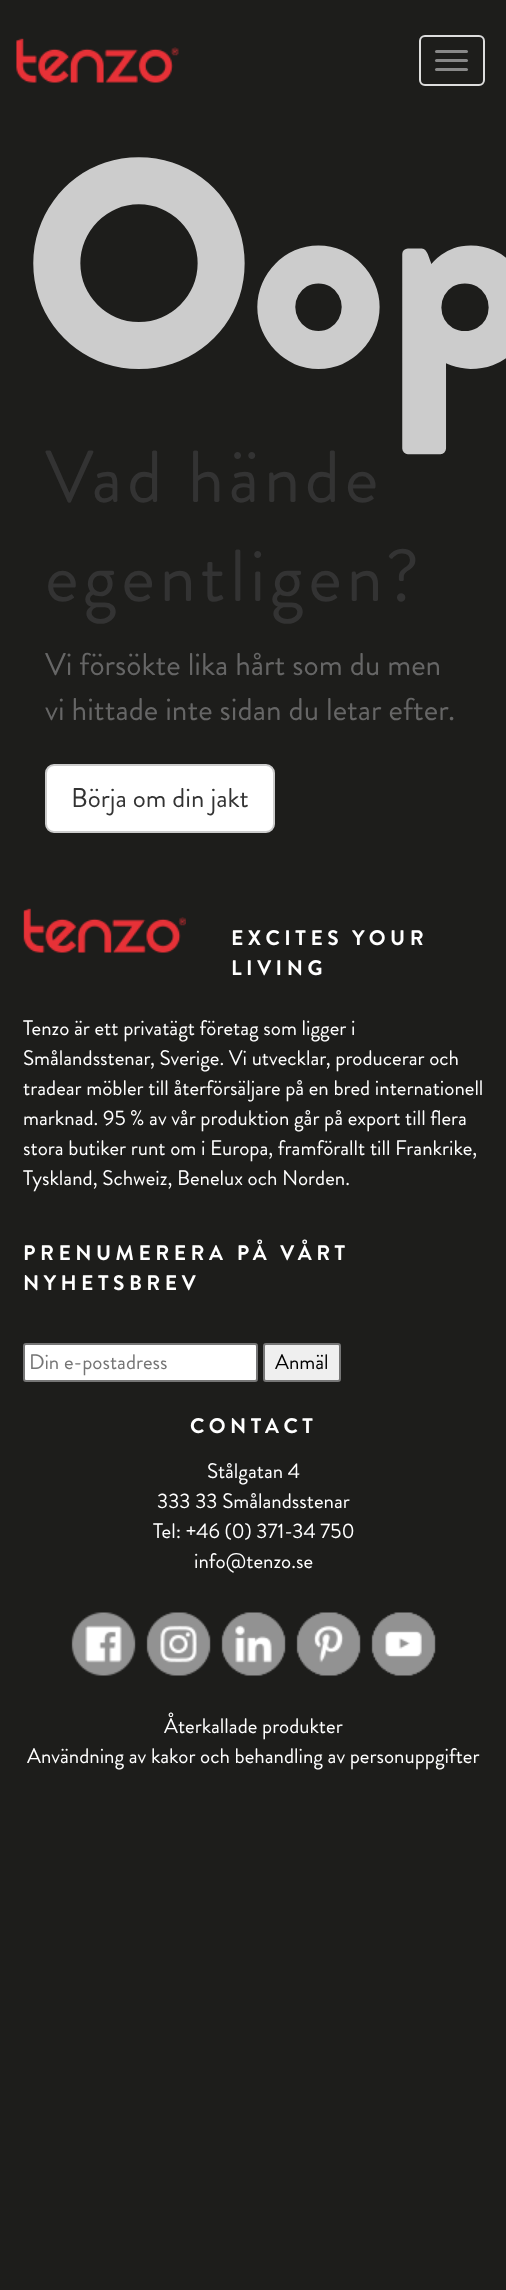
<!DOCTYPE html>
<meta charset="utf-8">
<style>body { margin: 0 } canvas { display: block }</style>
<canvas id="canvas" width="506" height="2290"></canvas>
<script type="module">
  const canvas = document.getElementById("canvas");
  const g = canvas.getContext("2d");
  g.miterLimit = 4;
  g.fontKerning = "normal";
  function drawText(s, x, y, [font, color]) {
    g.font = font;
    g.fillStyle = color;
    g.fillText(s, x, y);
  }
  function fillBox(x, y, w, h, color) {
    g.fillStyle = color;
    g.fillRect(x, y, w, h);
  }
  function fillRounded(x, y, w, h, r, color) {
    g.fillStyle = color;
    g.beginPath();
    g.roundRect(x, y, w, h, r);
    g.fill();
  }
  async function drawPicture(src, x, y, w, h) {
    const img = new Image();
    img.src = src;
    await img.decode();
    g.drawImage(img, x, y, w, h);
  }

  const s1 = ["900 294px Brandon Grotesque", "#CCCCCC"];
  const s2 = ["73.5px Brandon Grotesque", "#333333"];
  const s3 = ["31.5px Brandon Grotesque", "#666666"];
  const s4 = ["27px Brandon Grotesque", "#333333"];
  const s5 = ["bold 21px Brandon Grotesque", "#FFFFFF"];
  const s6 = ["21px Brandon Grotesque", "#FFFFFF"];
  const s7 = ["21px Brandon Grotesque", "#757575"];
  const s8 = ["21px Brandon Grotesque", "#000000"];

  fillBox(0, 0, 506, 2290, "#1D1D1B");
  await drawPicture("pic1.png", 16, 38, 163, 45);
  g.beginPath();
  g.roundRect(420, 36, 64, 49, 5);
  g.strokeStyle = "#DDDDDD";
  g.lineWidth = 2;
  g.stroke();
  fillRounded(435, 50, 33, 3, 1.5, "#888888");
  fillRounded(435, 59, 33, 3, 1.5, "#888888");
  fillRounded(435, 68, 33, 3, 1.5, "#888888");
  drawText("Oop", 23, 366, s1);
  g.letterSpacing = "4.5px";
  drawText("Vad hände", 45, 502, s2);
  drawText("egentligen?", 45, 601, s2);
  g.letterSpacing = "0px";
  drawText("Vi försökte lika hårt som du men", 45, 675, s3);
  drawText("vi hittade inte sidan du letar efter.", 45, 720, s3);
  g.fillStyle = "#FFFFFF";
  g.beginPath();
  g.roundRect(46, 765, 228, 67, 8);
  g.fill();
  g.strokeStyle = "#CCCCCC";
  g.stroke();
  drawText("Börja om din jakt", 71, 807, s4);
  await drawPicture("pic2.png", 23, 908, 163, 45);
  g.letterSpacing = "4.5px";
  drawText("EXCITES YOUR", 231, 945, s5);
  drawText("LIVING", 231, 975, s5);
  g.letterSpacing = "0px";
  drawText("Tenzo är ett privatägt företag som ligger i", 23, 1035, s6);
  drawText("Smålandsstenar, Sverige. Vi utvecklar, producerar och", 23, 1065, s6);
  drawText("tradear möbler till återförsäljare på en bred internationell", 23, 1095, s6);
  drawText("marknad. 95 % av vår produktion går på export till flera", 23, 1125, s6);
  drawText("stora butiker runt om i Europa, framförallt till Frankrike,", 23, 1155, s6);
  drawText("Tyskland, Schweiz, Benelux och Norden.", 23, 1185, s6);
  g.letterSpacing = "4.5px";
  drawText("PRENUMERERA PÅ VÅRT", 23, 1260, s5);
  drawText("NYHETSBREV", 23, 1290, s5);
  g.beginPath();
  g.roundRect(24, 1344, 233, 37, 2);
  g.fill();
  g.strokeStyle = "#767676";
  g.stroke();
  g.letterSpacing = "0px";
  drawText("Din e-postadress", 29, 1369, s7);
  g.fillStyle = "#EFEFEF";
  g.beginPath();
  g.roundRect(264, 1344, 76, 37, 2);
  g.fill();
  g.stroke();
  drawText("Anmäl", 275, 1369, s8);
  g.letterSpacing = "4.5px";
  drawText("CONTACT", 190, 1433, s5);
  g.letterSpacing = "0px";
  drawText("Stålgatan 4", 207, 1478, s6);
  drawText("333 33 Smålandsstenar", 157, 1508, s6);
  drawText("Tel: +46 (0) 371-34 750", 153, 1538, s6);
  drawText("info@tenzo.se", 194, 1568, s6);
  await drawPicture("pic3.png", 71, 1612, 65, 64);
  await drawPicture("pic4.png", 146, 1612, 65, 64);
  await drawPicture("pic5.png", 221, 1612, 65, 64);
  await drawPicture("pic6.png", 296, 1612, 65, 64);
  await drawPicture("pic7.png", 371, 1612, 65, 64);
  drawText("Återkallade produkter", 164, 1733, s6);
  drawText("Användning av kakor och behandling av personuppgifter", 27, 1763, s6);
</script>
